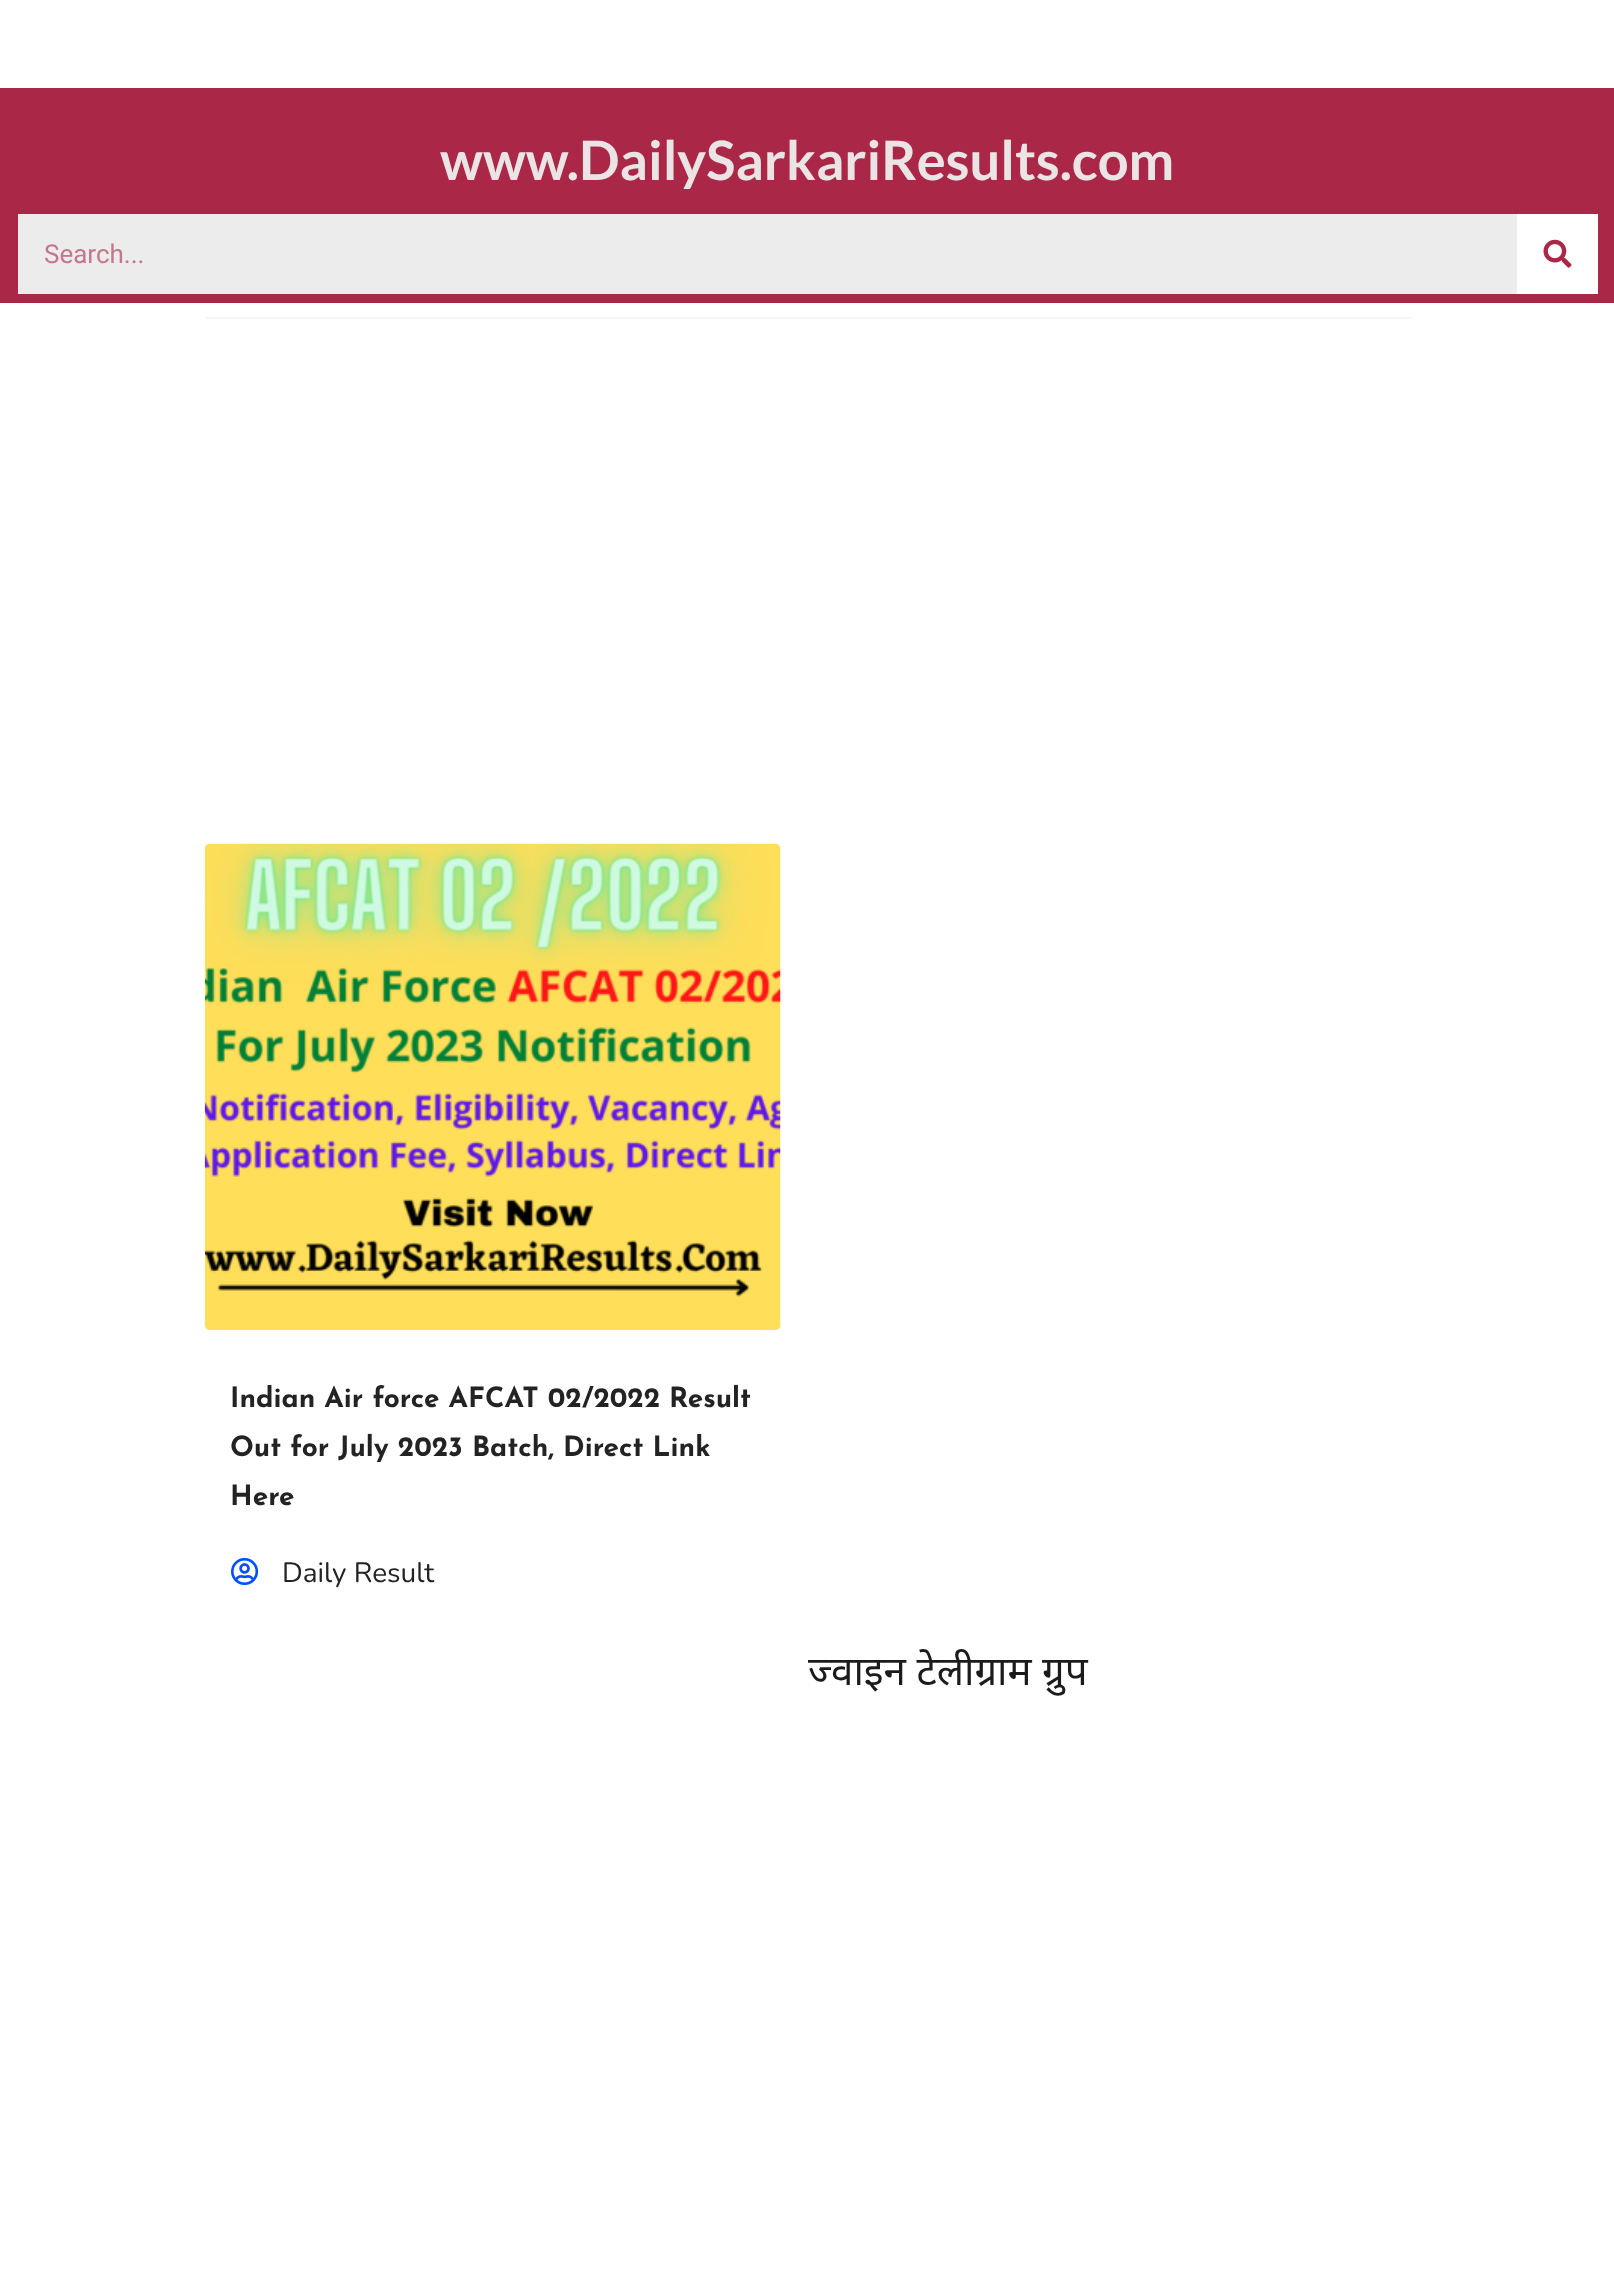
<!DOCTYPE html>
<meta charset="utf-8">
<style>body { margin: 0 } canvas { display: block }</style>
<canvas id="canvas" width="1614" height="2284"></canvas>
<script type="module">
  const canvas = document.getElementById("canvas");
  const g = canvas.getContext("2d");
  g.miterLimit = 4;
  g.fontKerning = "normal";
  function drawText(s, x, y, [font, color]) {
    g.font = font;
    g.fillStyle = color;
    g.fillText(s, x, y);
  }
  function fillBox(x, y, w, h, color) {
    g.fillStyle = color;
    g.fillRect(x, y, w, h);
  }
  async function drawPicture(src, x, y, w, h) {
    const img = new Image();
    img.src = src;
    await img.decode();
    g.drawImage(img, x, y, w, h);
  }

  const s1 = ["bold 54.25px Lato", "#EAE4E4"];
  const s2 = ["26px Roboto", "#C4768A"];
  const s3 = ["bold 28px Josefin Sans", "#242323"];
  const s4 = ["28px Nunito", "#242323"];
  const s5 = ["40.25px Noto Sans", "#1B1B1B"];

  fillBox(0, 0, 1614, 2284, "#FFFFFF");
  fillBox(0, 88, 1614, 215, "#AA2748");
  drawText("www.DailySarkariResults.com", 440, 180, s1);
  fillBox(18, 214, 1499, 80, "#ECECEC");
  drawText("Search...", 44, 263, s2);
  fillBox(1517, 214, 81, 80, "#FFFFFF");
  await drawPicture("pic1.png", 1543, 239, 29, 29);
  fillBox(205, 317, 1207, 2, "#F3F3F8");
  await drawPicture("pic2.png", 204, 843, 577, 487);
  drawText("Indian Air force AFCAT 02/2022 Result", 230, 1407, s3);
  drawText("Out for July 2023 Batch, Direct Link", 230, 1456, s3);
  drawText("Here", 230, 1505, s3);
  await drawPicture("pic3.png", 231, 1557, 28, 29);
  drawText("Daily Result", 282, 1582, s4);
  drawText("ज्वाइन टेलीग्राम ग्रुप", 808, 1685, s5);
</script>
